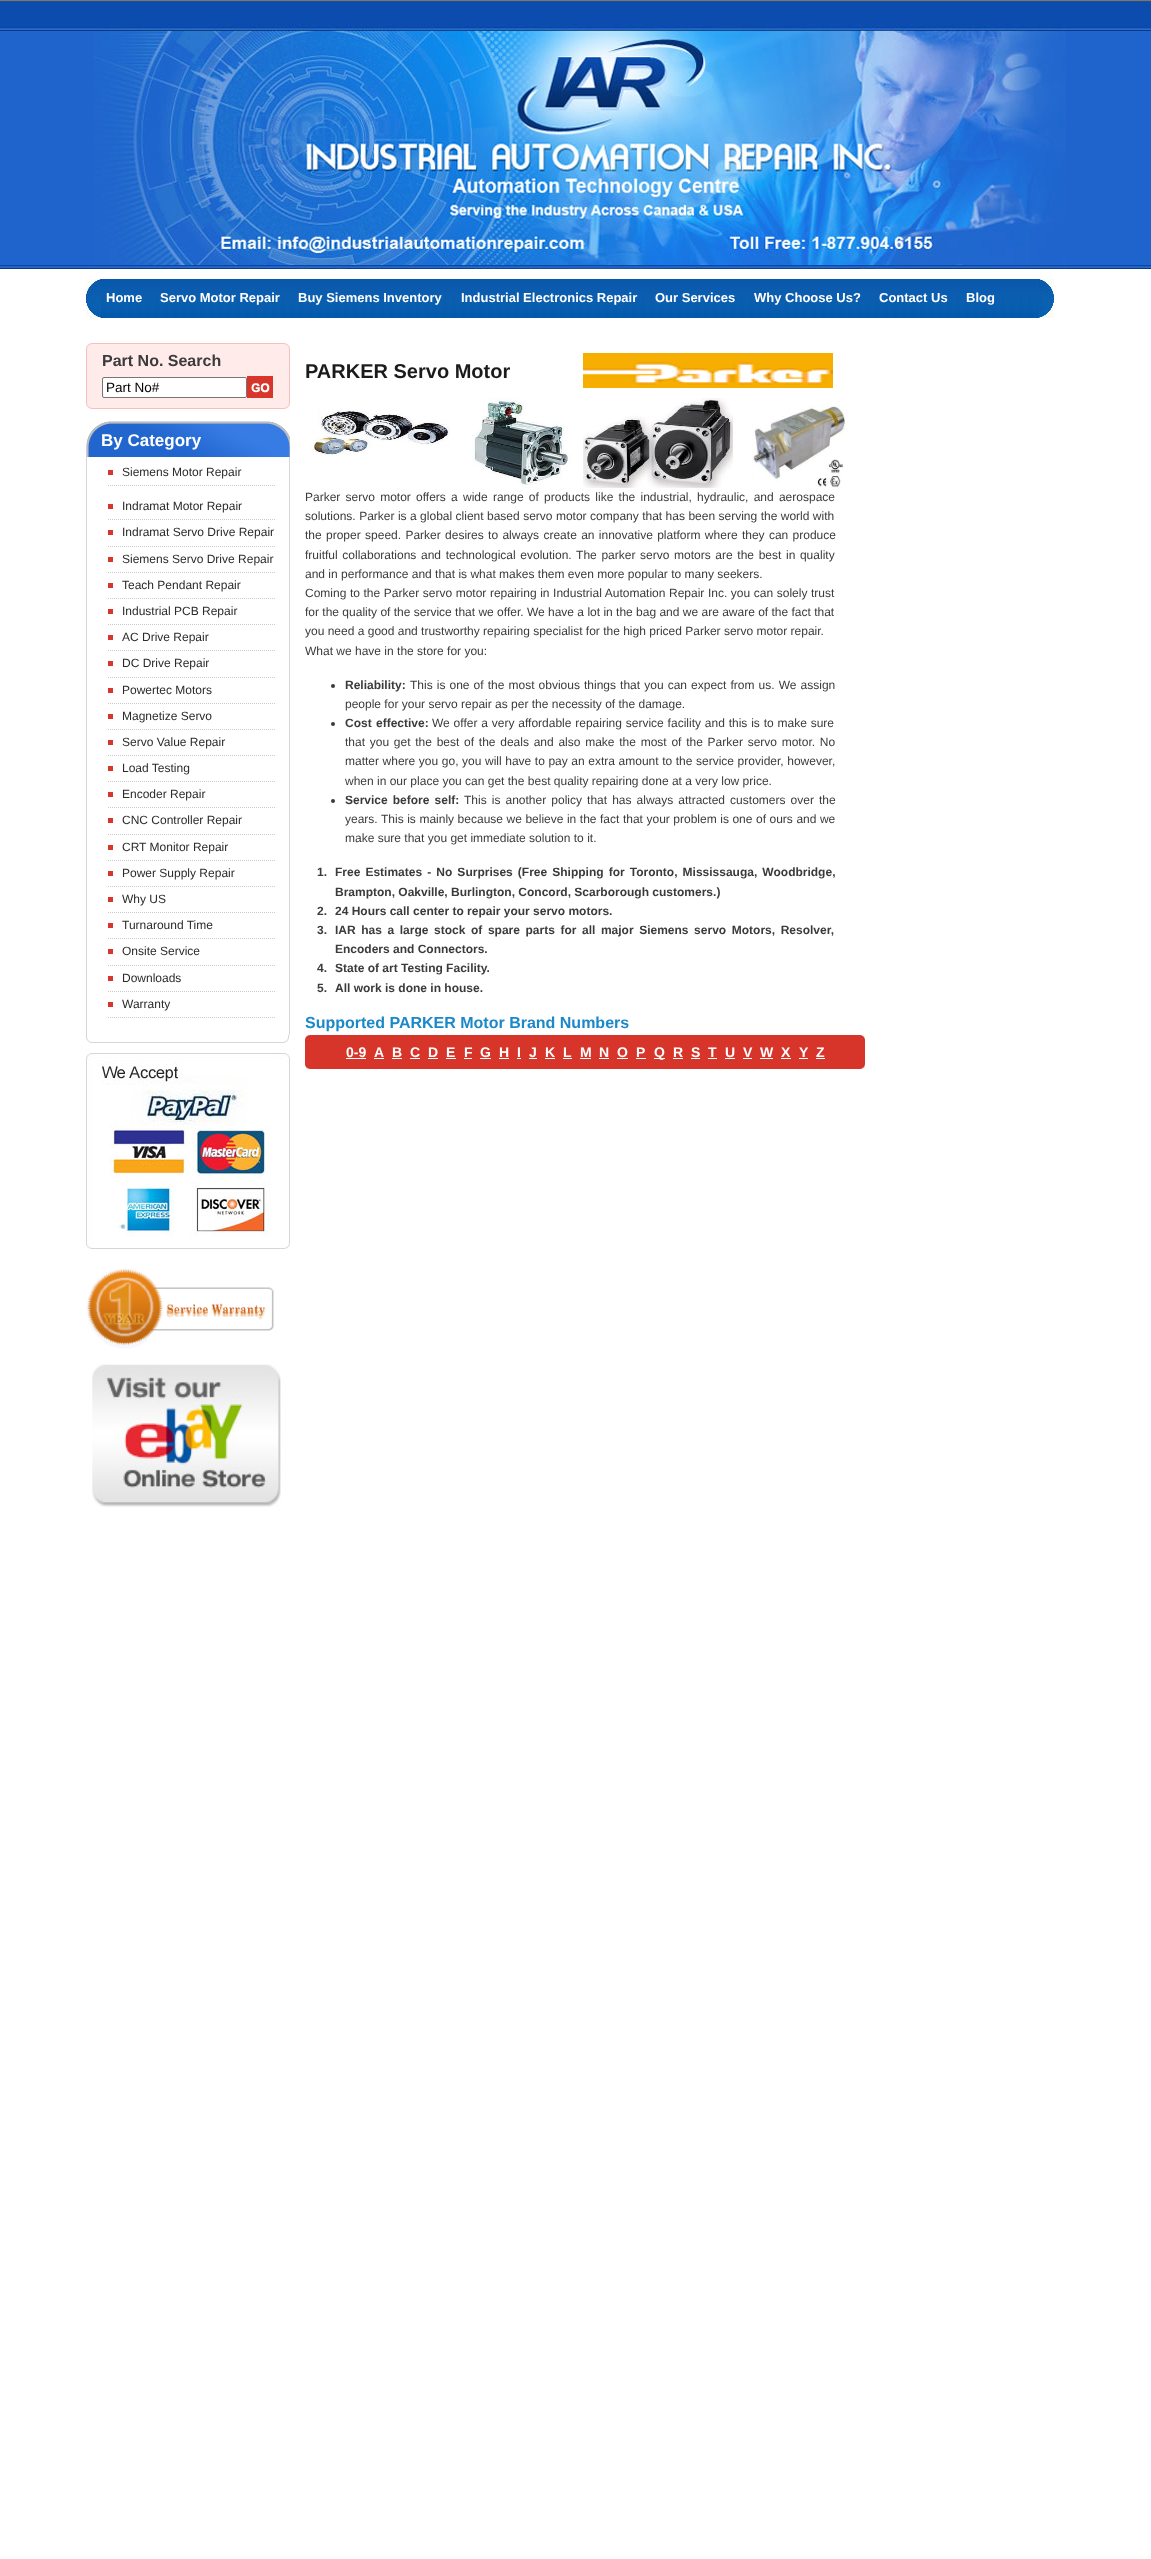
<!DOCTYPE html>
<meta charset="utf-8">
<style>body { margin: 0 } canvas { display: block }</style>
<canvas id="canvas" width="1151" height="2559"></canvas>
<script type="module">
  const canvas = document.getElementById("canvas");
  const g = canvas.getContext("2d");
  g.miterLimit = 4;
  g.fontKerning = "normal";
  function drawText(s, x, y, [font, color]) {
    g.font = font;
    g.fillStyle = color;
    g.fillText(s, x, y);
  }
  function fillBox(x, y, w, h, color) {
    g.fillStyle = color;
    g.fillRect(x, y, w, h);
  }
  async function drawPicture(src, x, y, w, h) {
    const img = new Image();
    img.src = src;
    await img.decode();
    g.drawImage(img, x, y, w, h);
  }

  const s1 = ["bold 13px Liberation Sans", "#FFFFFF"];
  const s2 = ["bold 16px Liberation Sans", "#3B3B3B"];
  const s3 = ["13.5px Liberation Sans", "#000000"];
  const s4 = ["bold 17px Liberation Sans", "#FFFFFF"];
  const s5 = ["12px Liberation Sans", "#2B2B2B"];
  const s6 = ["bold 20px Liberation Sans", "#1B1B1B"];
  const s7 = ["12px Liberation Sans", "#3B3B3B"];
  const s8 = ["bold 12px Liberation Sans", "#3B3B3B"];
  const s9 = ["bold 16px Liberation Sans", "#1B88C9"];
  const s10 = ["bold 14px Liberation Sans", "#FFFFFF"];

  fillBox(0, 0, 1151, 2559, "#FFFFFF");
  await drawPicture("pic1.png", 0, 0, 1151, 269);
  await drawPicture("pic2.png", 94, 24, 972, 245);
  await drawPicture("pic3.png", 86, 279, 15, 39);
  await drawPicture("pic4.png", 101, 279, 937, 39);
  drawText("Home", 106, 302, s1);
  drawText("Servo Motor Repair", 160, 302, s1);
  drawText("Buy Siemens Inventory", 298, 302, s1);
  drawText("Industrial Electronics Repair", 461, 302, s1);
  drawText("Our Services", 655, 302, s1);
  drawText("Why Choose Us?", 754, 302, s1);
  drawText("Contact Us", 879, 302, s1);
  drawText("Blog", 966, 302, s1);
  await drawPicture("pic5.png", 1038, 279, 16, 39);
  await drawPicture("pic6.png", 86, 343, 204, 66);
  drawText("Part No. Search", 102, 366, s2);
  g.fillStyle = "#FFFFFF";
  g.beginPath();
  g.roundRect(102.5, 377.5, 144, 20, 1.5);
  g.fill();
  g.strokeStyle = "#767676";
  g.stroke();
  drawText("Part No#", 106, 392, s3);
  await drawPicture("pic7.png", 247, 376, 26, 22);
  await drawPicture("pic8.png", 86, 421, 204, 36);
  drawText("By Category", 101, 446, s4);
  fillBox(86, 457, 1, 578, "#D6D6D6");
  fillBox(108, 470, 5, 5, "#D9362B");
  drawText("Siemens Motor Repair", 122, 476, s5);
  g.beginPath();
  g.moveTo(108, 485.5);
  g.lineTo(275, 485.5);
  g.strokeStyle = "#CCCCCC";
  g.setLineDash([1, 1]);
  g.stroke();
  fillBox(108, 504, 5, 5, "#D9362B");
  drawText("Indramat Motor Repair", 122, 510, s5);
  g.beginPath();
  g.moveTo(108, 519.5);
  g.lineTo(275, 519.5);
  g.stroke();
  fillBox(108, 530, 5, 5, "#D9362B");
  drawText("Indramat Servo Drive Repair", 122, 536, s5);
  g.beginPath();
  g.moveTo(108, 546.5);
  g.lineTo(275, 546.5);
  g.stroke();
  fillBox(108, 557, 5, 5, "#D9362B");
  drawText("Siemens Servo Drive Repair", 122, 563, s5);
  g.beginPath();
  g.moveTo(108, 572.5);
  g.lineTo(275, 572.5);
  g.stroke();
  fillBox(108, 583, 5, 5, "#D9362B");
  drawText("Teach Pendant Repair", 122, 589, s5);
  g.beginPath();
  g.moveTo(108, 598.5);
  g.lineTo(275, 598.5);
  g.stroke();
  fillBox(108, 609, 5, 5, "#D9362B");
  drawText("Industrial PCB Repair", 122, 615, s5);
  g.beginPath();
  g.moveTo(108, 624.5);
  g.lineTo(275, 624.5);
  g.stroke();
  fillBox(108, 635, 5, 5, "#D9362B");
  drawText("AC Drive Repair", 122, 641, s5);
  g.beginPath();
  g.moveTo(108, 650.5);
  g.lineTo(275, 650.5);
  g.stroke();
  fillBox(108, 661, 5, 5, "#D9362B");
  drawText("DC Drive Repair", 122, 667, s5);
  g.beginPath();
  g.moveTo(108, 677.5);
  g.lineTo(275, 677.5);
  g.stroke();
  fillBox(108, 688, 5, 5, "#D9362B");
  drawText("Powertec Motors", 122, 694, s5);
  g.beginPath();
  g.moveTo(108, 703.5);
  g.lineTo(275, 703.5);
  g.stroke();
  fillBox(108, 714, 5, 5, "#D9362B");
  drawText("Magnetize Servo", 122, 720, s5);
  g.beginPath();
  g.moveTo(108, 729.5);
  g.lineTo(275, 729.5);
  g.stroke();
  fillBox(108, 740, 5, 5, "#D9362B");
  drawText("Servo Value Repair", 122, 746, s5);
  g.beginPath();
  g.moveTo(108, 755.5);
  g.lineTo(275, 755.5);
  g.stroke();
  fillBox(108, 766, 5, 5, "#D9362B");
  drawText("Load Testing", 122, 772, s5);
  g.beginPath();
  g.moveTo(108, 781.5);
  g.lineTo(275, 781.5);
  g.stroke();
  fillBox(108, 792, 5, 5, "#D9362B");
  drawText("Encoder Repair", 122, 798, s5);
  g.beginPath();
  g.moveTo(108, 807.5);
  g.lineTo(275, 807.5);
  g.stroke();
  fillBox(108, 818, 5, 5, "#D9362B");
  drawText("CNC Controller Repair", 122, 824, s5);
  g.beginPath();
  g.moveTo(108, 834.5);
  g.lineTo(275, 834.5);
  g.stroke();
  fillBox(108, 845, 5, 5, "#D9362B");
  drawText("CRT Monitor Repair", 122, 851, s5);
  g.beginPath();
  g.moveTo(108, 860.5);
  g.lineTo(275, 860.5);
  g.stroke();
  fillBox(108, 871, 5, 5, "#D9362B");
  drawText("Power Supply Repair", 122, 877, s5);
  g.beginPath();
  g.moveTo(108, 886.5);
  g.lineTo(275, 886.5);
  g.stroke();
  fillBox(108, 897, 5, 5, "#D9362B");
  drawText("Why US", 122, 903, s5);
  g.beginPath();
  g.moveTo(108, 912.5);
  g.lineTo(275, 912.5);
  g.stroke();
  fillBox(108, 923, 5, 5, "#D9362B");
  drawText("Turnaround Time", 122, 929, s5);
  g.beginPath();
  g.moveTo(108, 938.5);
  g.lineTo(275, 938.5);
  g.stroke();
  fillBox(108, 949, 5, 5, "#D9362B");
  drawText("Onsite Service", 122, 955, s5);
  g.beginPath();
  g.moveTo(108, 965.5);
  g.lineTo(275, 965.5);
  g.stroke();
  fillBox(108, 976, 5, 5, "#D9362B");
  drawText("Downloads", 122, 982, s5);
  g.beginPath();
  g.moveTo(108, 991.5);
  g.lineTo(275, 991.5);
  g.stroke();
  fillBox(108, 1002, 5, 5, "#D9362B");
  drawText("Warranty", 122, 1008, s5);
  g.beginPath();
  g.moveTo(108, 1017.5);
  g.lineTo(275, 1017.5);
  g.stroke();
  fillBox(289, 457, 1, 578, "#D6D6D6");
  await drawPicture("pic9.png", 86, 1035, 8, 8);
  fillBox(94, 1042, 187, 1, "#D6D6D6");
  await drawPicture("pic10.png", 281, 1035, 8, 8);
  await drawPicture("pic11.png", 86, 1053, 204, 196);
  await drawPicture("pic12.png", 86, 1269, 188, 80);
  await drawPicture("pic13.png", 92, 1364, 189, 143);
  drawText("PARKER Servo Motor", 305, 378, s6);
  await drawPicture("pic14.png", 583, 353, 250, 35);
  await drawPicture("pic15.png", 310, 410, 140, 45);
  await drawPicture("pic16.png", 472, 398, 100, 90);
  await drawPicture("pic17.png", 583, 398, 150, 90);
  await drawPicture("pic18.png", 752, 405, 94, 83);
  g.wordSpacing = "1.9px";
  drawText("Parker servo motor offers a wide range of products like the industrial, hydraulic, and aerospace", 305, 501, s7);
  g.wordSpacing = "0.1px";
  drawText("solutions. Parker is a global client based servo motor company that has been serving the world with", 305, 520, s7);
  g.wordSpacing = "1px";
  drawText("the proper speed. Parker desires to always create an innovative platform where they can produce", 305, 539, s7);
  g.wordSpacing = "1.3px";
  drawText("fruitful collaborations and technological evolution. The parker servo motors are the best in quality", 305, 559, s7);
  g.wordSpacing = "0px";
  drawText("and in performance and that is what makes them even more popular to many seekers.", 305, 578, s7);
  g.wordSpacing = "0.25px";
  drawText("Coming to the Parker servo motor repairing in Industrial Automation Repair Inc. you can solely trust", 305, 597, s7);
  g.wordSpacing = "0px";
  drawText("for the quality of the service that we offer. We have a lot in the bag and we are aware of the fact that", 305, 616, s7);
  drawText("you need a good and trustworthy repairing specialist for the high priced Parker servo motor repair.", 305, 635, s7);
  drawText("What we have in the store for you:", 305, 655, s7);
  g.beginPath();
  g.arc(333, 686, 2, 0, Math.PI * 2);
  g.fill();
  drawText("Reliability:", 345, 689, s8);
  g.wordSpacing = "0.75px";
  drawText("This is one of the most obvious things that you can expect from us. We assign", 410, 689, s7);
  g.wordSpacing = "0px";
  drawText("people for your servo repair as per the necessity of the damage.", 345, 708, s7);
  g.beginPath();
  g.arc(333, 724, 2, 0, Math.PI * 2);
  g.fill();
  g.wordSpacing = "1px";
  drawText("Cost effective:", 345, 727, s8);
  g.wordSpacing = "0.5px";
  drawText("We offer a very affordable repairing service facility and this is to make sure", 432, 727, s7);
  g.wordSpacing = "1.4px";
  drawText("that you get the best of the deals and also make the most of the Parker servo motor. No", 345, 746, s7);
  g.wordSpacing = "0.25px";
  drawText("matter where you go, you will have to pay an extra amount to the service provider, however,", 345, 765, s7);
  g.wordSpacing = "0px";
  drawText("when in our place you can get the best quality repairing done at a very low price.", 345, 785, s7);
  g.beginPath();
  g.arc(333, 801, 2, 0, Math.PI * 2);
  g.fill();
  g.wordSpacing = "1.75px";
  drawText("Service before self:", 345, 804, s8);
  drawText("This is another policy that has always attracted customers over the", 464, 804, s7);
  g.wordSpacing = "0.2px";
  drawText("years. This is mainly because we believe in the fact that your problem is one of ours and we", 345, 823, s7);
  g.wordSpacing = "0px";
  drawText("make sure that you get immediate solution to it.", 345, 842, s7);
  drawText("1.", 317, 876, s8);
  g.wordSpacing = "1.75px";
  drawText("Free Estimates - No Surprises (Free Shipping for Toronto, Mississauga, Woodbridge,", 335, 876, s8);
  g.wordSpacing = "0px";
  drawText("Brampton, Oakville, Burlington, Concord, Scarborough customers.)", 335, 896, s8);
  drawText("2.", 317, 915, s8);
  drawText("24 Hours call center to repair your servo motors.", 335, 915, s8);
  drawText("3.", 317, 934, s8);
  g.wordSpacing = "2.25px";
  drawText("IAR has a large stock of spare parts for all major Siemens servo Motors, Resolver,", 335, 934, s8);
  g.wordSpacing = "0px";
  drawText("Encoders and Connectors.", 335, 953, s8);
  drawText("4.", 317, 972, s8);
  drawText("State of art Testing Facility.", 335, 972, s8);
  drawText("5.", 317, 992, s8);
  drawText("All work is done in house.", 335, 992, s8);
  drawText("Supported PARKER Motor Brand Numbers", 305, 1028, s9);
  await drawPicture("pic19.png", 305, 1035, 7, 34);
  fillBox(312, 1035, 546, 34, "#D7352A");
  drawText("0-9", 346, 1057, s10);
  fillBox(346, 1058, 20, 1, "#FFFFFF");
  drawText("A", 374, 1057, s10);
  fillBox(374, 1058, 10, 1, "#FFFFFF");
  drawText("B", 392, 1057, s10);
  fillBox(392, 1058, 10, 1, "#FFFFFF");
  drawText("C", 410, 1057, s10);
  fillBox(410, 1058, 10, 1, "#FFFFFF");
  drawText("D", 428, 1057, s10);
  fillBox(428, 1058, 10, 1, "#FFFFFF");
  drawText("E", 446, 1057, s10);
  fillBox(446, 1058, 10, 1, "#FFFFFF");
  drawText("F", 464, 1057, s10);
  fillBox(464, 1058, 8, 1, "#FFFFFF");
  drawText("G", 480, 1057, s10);
  fillBox(480, 1058, 11, 1, "#FFFFFF");
  drawText("H", 499, 1057, s10);
  fillBox(499, 1058, 10, 1, "#FFFFFF");
  drawText("I", 517, 1057, s10);
  fillBox(517, 1058, 4, 1, "#FFFFFF");
  drawText("J", 529, 1057, s10);
  fillBox(529, 1058, 8, 1, "#FFFFFF");
  drawText("K", 545, 1057, s10);
  fillBox(545, 1058, 10, 1, "#FFFFFF");
  drawText("L", 563, 1057, s10);
  fillBox(563, 1058, 9, 1, "#FFFFFF");
  drawText("M", 580, 1057, s10);
  fillBox(580, 1058, 11, 1, "#FFFFFF");
  drawText("N", 599, 1057, s10);
  fillBox(599, 1058, 10, 1, "#FFFFFF");
  drawText("O", 617, 1057, s10);
  fillBox(617, 1058, 11, 1, "#FFFFFF");
  drawText("P", 636, 1057, s10);
  fillBox(636, 1058, 10, 1, "#FFFFFF");
  fillBox(654, 1058, 11, 1, "#FFFFFF");
  drawText("Q", 654, 1057, s10);
  drawText("R", 673, 1057, s10);
  fillBox(673, 1058, 10, 1, "#FFFFFF");
  drawText("S", 691, 1057, s10);
  fillBox(691, 1058, 9, 1, "#FFFFFF");
  drawText("T", 708, 1057, s10);
  fillBox(708, 1058, 9, 1, "#FFFFFF");
  drawText("U", 725, 1057, s10);
  fillBox(725, 1058, 10, 1, "#FFFFFF");
  drawText("V", 743, 1057, s10);
  fillBox(743, 1058, 9, 1, "#FFFFFF");
  drawText("W", 760, 1057, s10);
  fillBox(760, 1058, 13, 1, "#FFFFFF");
  drawText("X", 781, 1057, s10);
  fillBox(781, 1058, 10, 1, "#FFFFFF");
  drawText("Y", 799, 1057, s10);
  fillBox(799, 1058, 9, 1, "#FFFFFF");
  drawText("Z", 816, 1057, s10);
  fillBox(816, 1058, 9, 1, "#FFFFFF");
  await drawPicture("pic20.png", 858, 1035, 7, 34);
</script>
